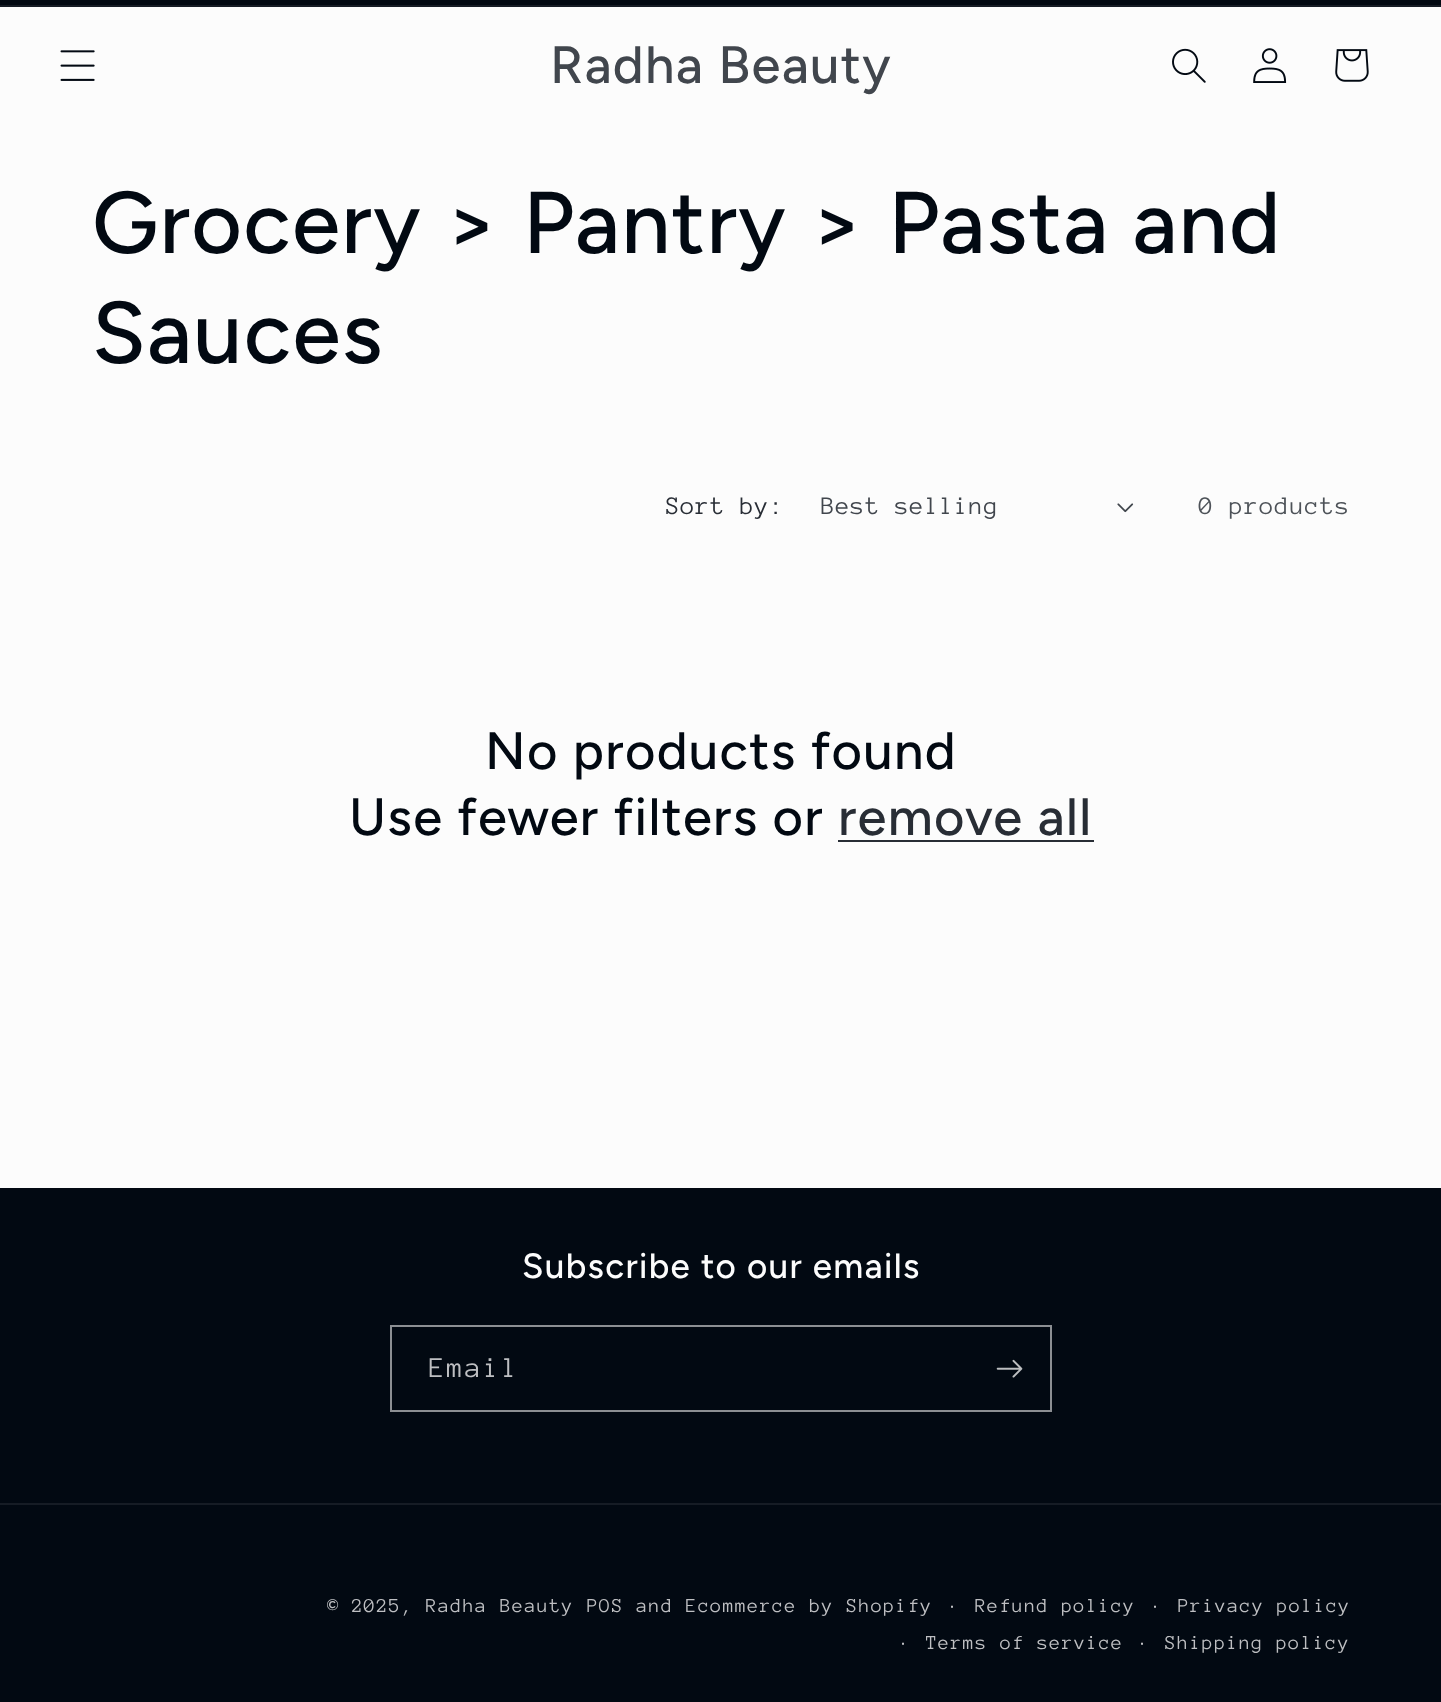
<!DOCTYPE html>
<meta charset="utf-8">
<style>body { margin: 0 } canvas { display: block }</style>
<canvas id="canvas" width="1441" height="1702"></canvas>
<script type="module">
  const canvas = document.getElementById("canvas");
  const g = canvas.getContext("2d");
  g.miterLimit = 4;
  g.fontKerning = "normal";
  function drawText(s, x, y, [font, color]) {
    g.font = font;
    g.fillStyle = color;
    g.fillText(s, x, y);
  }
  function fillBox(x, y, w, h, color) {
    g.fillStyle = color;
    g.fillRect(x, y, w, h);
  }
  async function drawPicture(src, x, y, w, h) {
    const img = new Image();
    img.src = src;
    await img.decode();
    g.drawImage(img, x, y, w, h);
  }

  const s1 = ["500 52.5px Figtree", "#41464D"];
  const s2 = ["500 87.5px Figtree", "#020912"];
  const s3 = ["25.75px Anonymous Pro", "#282D35"];
  const s4 = ["25.75px Anonymous Pro", "#41464D"];
  const s5 = ["25.75px Anonymous Pro", "#4D5258"];
  const s6 = ["500 52.5px Figtree", "#020912"];
  const s7 = ["500 52.5px Figtree", "#282D35"];
  const s8 = ["500 35px Figtree", "#FCFCFC"];
  const s9 = ["29.5px Anonymous Pro", "#BEBFC2"];
  const s10 = ["20.25px Anonymous Pro", "#BEBFC2"];
  const s11 = ["22px Anonymous Pro", "#BEBFC2"];

  fillBox(0, 0, 1441, 1702, "#FCFCFC");
  fillBox(0, 0, 1441, 5, "#020912");
  fillBox(0, 5, 1441, 2, "#161C25");
  await drawPicture("pic1.png", 60, 50, 35, 31);
  g.letterSpacing = "1.3px";
  drawText("Radha Beauty", 550, 83, s1);
  await drawPicture("pic2.png", 1172, 48, 34, 35);
  await drawPicture("pic3.png", 1253, 48, 34, 35);
  await drawPicture("pic4.png", 1335, 49, 34, 33);
  drawText("Grocery > Pantry > Pasta and", 92, 253, s2);
  drawText("Sauces", 92, 363, s2);
  g.letterSpacing = "0.75px";
  drawText("Sort by:", 666, 514, s3);
  drawText("Best selling", 821, 514, s4);
  await drawPicture("pic5.png", 1117, 503, 17, 10);
  g.letterSpacing = "1.1px";
  drawText("0 products", 1199, 514, s5);
  g.letterSpacing = "1.3px";
  drawText("No products found", 485, 769, s6);
  drawText("Use fewer filters or", 349, 835, s6);
  drawText("remove all", 838, 835, s7);
  fillBox(838, 840, 256, 2, "#282D35");
  fillBox(0, 1188, 1441, 514, "#020912");
  drawText("Subscribe to our emails", 522, 1278, s8);
  g.strokeStyle = "#8C8F93";
  g.lineWidth = 2;
  g.strokeRect(391, 1326, 660, 85);
  g.letterSpacing = "2px";
  drawText("Email", 429, 1377, s9);
  await drawPicture("pic6.png", 996, 1359, 27, 19);
  fillBox(0, 1503, 1441, 2, "#161C25");
  g.letterSpacing = "1.3px";
  drawText("© 2025, Radha Beauty", 327, 1612, s10);
  drawText("POS and Ecommerce by Shopify", 587, 1612, s10);
  drawText("·", 947, 1612, s11);
  drawText("Refund policy", 975, 1612, s10);
  drawText("·", 1150, 1612, s11);
  drawText("Privacy policy", 1178, 1612, s10);
  drawText("·", 898, 1649, s11);
  drawText("Terms of service", 926, 1649, s10);
  drawText("·", 1137, 1649, s11);
  drawText("Shipping policy", 1165, 1649, s10);
</script>
